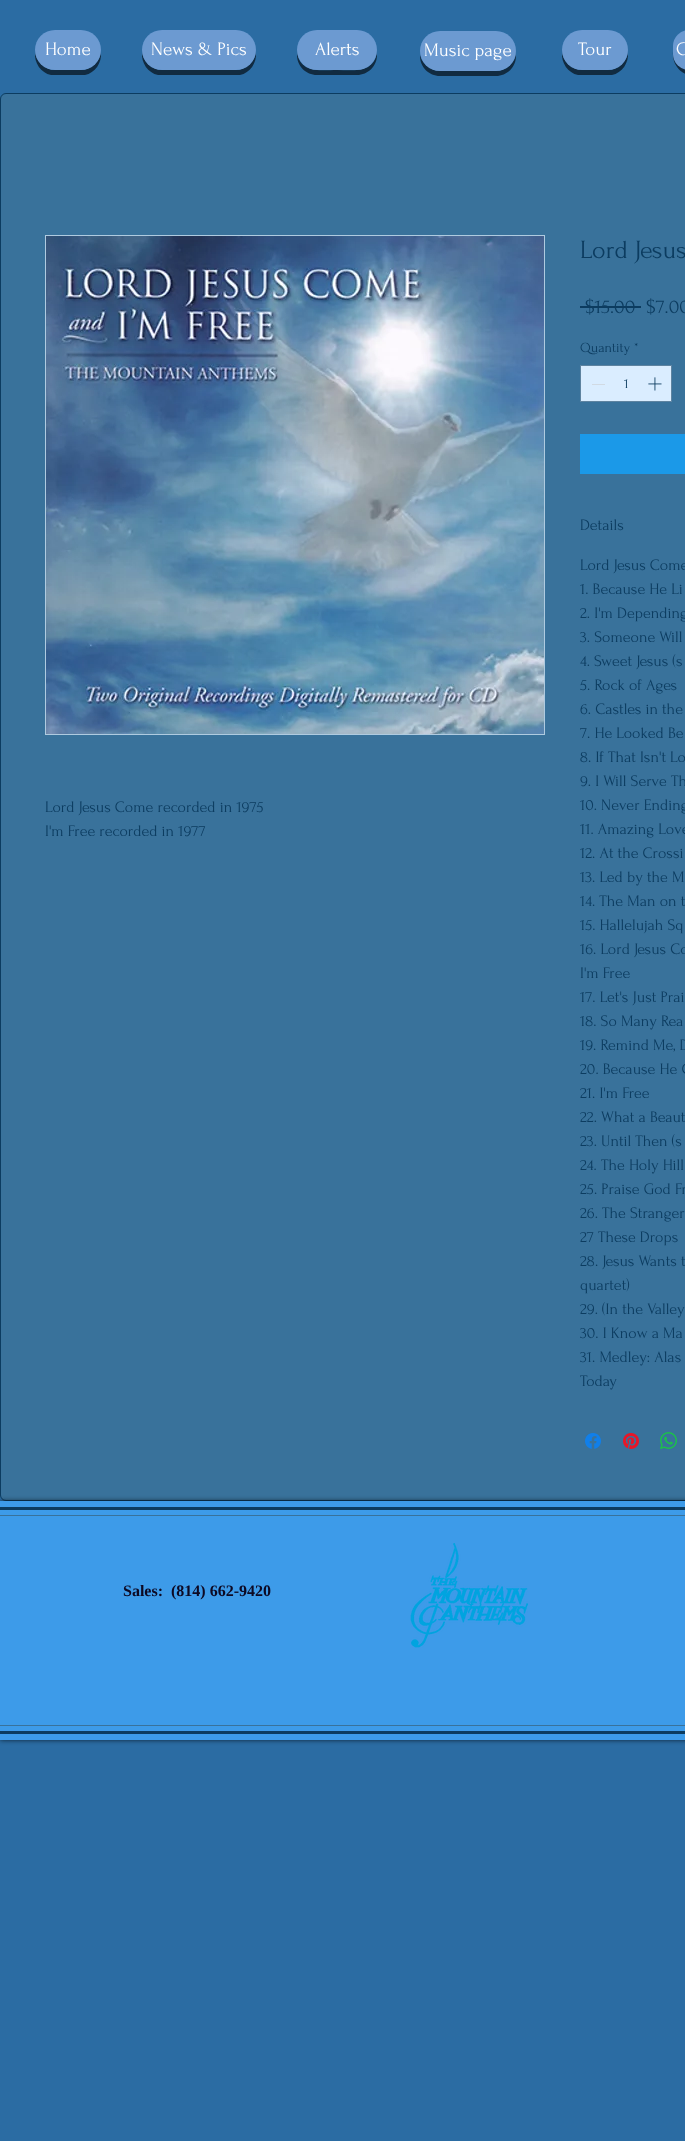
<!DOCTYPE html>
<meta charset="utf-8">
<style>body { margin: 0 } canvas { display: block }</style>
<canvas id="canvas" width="685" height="2141"></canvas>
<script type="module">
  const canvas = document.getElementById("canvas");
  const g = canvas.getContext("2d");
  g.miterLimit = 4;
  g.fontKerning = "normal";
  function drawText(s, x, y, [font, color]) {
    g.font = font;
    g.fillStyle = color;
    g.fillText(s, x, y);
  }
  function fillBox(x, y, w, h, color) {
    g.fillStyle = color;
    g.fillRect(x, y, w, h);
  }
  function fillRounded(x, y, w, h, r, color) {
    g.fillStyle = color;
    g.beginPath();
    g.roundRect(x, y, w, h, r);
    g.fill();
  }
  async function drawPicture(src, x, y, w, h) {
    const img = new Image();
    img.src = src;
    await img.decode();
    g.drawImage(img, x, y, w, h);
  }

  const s1 = ["19px Forum", "#FFFFFF"];
  const s2 = ["16px Forum", "#0C3C60"];
  const s3 = ["26px Forum", "#0C3C60"];
  const s4 = ["20px Forum", "#0C3C60"];
  const s5 = ["14px Forum", "#0C3C60"];
  const s6 = ["bold 16px Liberation Serif", "#0D0923"];

  fillBox(0, 0, 685, 2141, "#2B6CA3");
  g.fillStyle = "#112B41";
  g.beginPath();
  g.moveTo(35, 52);
  g.bezierCurveTo(34, 63, 41, 73, 51, 75);
  g.lineTo(68, 75);
  g.lineTo(85, 75);
  g.bezierCurveTo(95, 73, 102, 63, 101, 52);
  g.bezierCurveTo(100, 62, 91, 70, 81, 70);
  g.lineTo(55, 70);
  g.bezierCurveTo(45, 70, 36, 62, 35, 52);
  g.closePath();
  g.fill();
  fillRounded(35, 30, 66, 40, 20, "#6C9AD1");
  drawText("Home", 45, 55, s1);
  g.fillStyle = "#112B41";
  g.beginPath();
  g.moveTo(142, 52);
  g.bezierCurveTo(141, 63, 148, 73, 158, 75);
  g.lineTo(174, 75);
  g.lineTo(240, 75);
  g.bezierCurveTo(250, 73, 257, 63, 256, 52);
  g.bezierCurveTo(255, 62, 246, 70, 236, 70);
  g.lineTo(162, 70);
  g.bezierCurveTo(152, 70, 143, 62, 142, 52);
  g.closePath();
  g.fill();
  fillRounded(142, 30, 114, 40, 20, "#6C9AD1");
  drawText("News & Pics", 151, 55, s1);
  g.fillStyle = "#112B41";
  g.beginPath();
  g.moveTo(297, 52);
  g.lineTo(297, 55);
  g.bezierCurveTo(297, 66, 306, 75, 317, 75);
  g.lineTo(357, 75);
  g.bezierCurveTo(368, 75, 377, 66, 377, 55);
  g.lineTo(377, 52);
  g.bezierCurveTo(374, 74, 352, 70, 337, 70);
  g.bezierCurveTo(322, 70, 300, 74, 297, 52);
  g.closePath();
  g.fill();
  fillRounded(297, 30, 80, 40, 20, "#6C9AD1");
  drawText("Alerts", 315, 55, s1);
  g.fillStyle = "#112B41";
  g.beginPath();
  g.moveTo(420, 54);
  g.lineTo(420, 56);
  g.bezierCurveTo(420, 67, 429, 76, 440, 76);
  g.lineTo(496, 76);
  g.bezierCurveTo(507, 76, 516, 67, 516, 56);
  g.lineTo(516, 54);
  g.bezierCurveTo(515, 63, 506, 71, 496, 71);
  g.lineTo(440, 71);
  g.bezierCurveTo(430, 71, 421, 63, 420, 54);
  g.closePath();
  g.fill();
  fillRounded(420, 31, 96, 40, 20, "#6C9AD1");
  drawText("Music page", 424, 56, s1);
  g.fillStyle = "#112B41";
  g.beginPath();
  g.moveTo(562, 52);
  g.bezierCurveTo(561, 63, 568, 73, 578, 75);
  g.lineTo(595, 75);
  g.lineTo(612, 75);
  g.bezierCurveTo(622, 73, 629, 63, 628, 52);
  g.bezierCurveTo(627, 62, 618, 70, 608, 70);
  g.lineTo(582, 70);
  g.bezierCurveTo(572, 70, 563, 62, 562, 52);
  g.closePath();
  g.fill();
  fillRounded(562, 30, 66, 40, 20, "#6C9AD1");
  drawText("Tour", 578, 55, s1);
  g.fillStyle = "#112B41";
  g.beginPath();
  g.moveTo(673, 52);
  g.bezierCurveTo(672, 63, 679, 73, 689, 75);
  g.lineTo(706, 75);
  g.lineTo(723, 75);
  g.bezierCurveTo(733, 73, 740, 63, 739, 52);
  g.bezierCurveTo(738, 62, 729, 70, 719, 70);
  g.lineTo(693, 70);
  g.bezierCurveTo(683, 70, 674, 62, 673, 52);
  g.closePath();
  g.fill();
  fillRounded(673, 30, 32, 40, 20, "#6C9AD1");
  drawText("C", 676, 55, s1);
  g.fillStyle = "#39729B";
  g.beginPath();
  g.roundRect(0.5, 93.5, 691, 1407, 5.5);
  g.fill();
  g.strokeStyle = "#0C3C60";
  g.stroke();
  g.strokeStyle = "#AFCBE0";
  g.strokeRect(45.5, 235.5, 499, 499);
  await drawPicture("pic1.png", 46, 236, 498, 498);
  drawText("Lord Jesus Come recorded in 1975", 45, 812, s2);
  drawText("I'm Free recorded in 1977", 45, 836, s2);
  drawText("Lord Jesus", 580, 258, s3);
  drawText("$15.00", 585, 313, s4);
  fillBox(580, 306, 61, 2, "#0C3C60");
  drawText("$7.00", 646, 313, s4);
  drawText("Quantity", 580, 352, s5);
  drawText("*", 634, 352, s5);
  g.fillStyle = "#DAEDFF";
  g.beginPath();
  g.rect(580.5, 365.5, 91, 36);
  g.fill();
  g.strokeStyle = "#5E83A0";
  g.stroke();
  fillBox(592, 384, 13, 1, "#D1DAE3");
  drawText("1", 624, 388, s5);
  await drawPicture("pic2.png", 648, 377, 14, 14);
  fillBox(580, 434, 105, 40, "#1B99E8");
  drawText("Details", 580, 530, s2);
  drawText("Lord Jesus Come", 580, 570, s2);
  drawText("1. Because He Li", 580, 594, s2);
  drawText("2. I'm Depending", 580, 618, s2);
  drawText("3. Someone Will", 580, 642, s2);
  drawText("4. Sweet Jesus (s", 580, 666, s2);
  drawText("5. Rock of Ages", 580, 690, s2);
  drawText("6. Castles in the", 580, 714, s2);
  drawText("7. He Looked Be", 580, 738, s2);
  drawText("8. If That Isn't Lo", 580, 762, s2);
  drawText("9. I Will Serve Th", 580, 786, s2);
  drawText("10. Never Ending", 580, 810, s2);
  drawText("11. Amazing Love", 580, 834, s2);
  drawText("12. At the Crossi", 580, 858, s2);
  drawText("13. Led by the M", 580, 882, s2);
  drawText("14. The Man on t", 580, 906, s2);
  drawText("15. Hallelujah Sq", 580, 930, s2);
  drawText("16. Lord Jesus Co", 580, 954, s2);
  drawText("I'm Free", 580, 978, s2);
  drawText("17. Let's Just Prai", 580, 1002, s2);
  drawText("18. So Many Rea", 580, 1026, s2);
  drawText("19. Remind Me, D", 580, 1050, s2);
  drawText("20. Because He C", 580, 1074, s2);
  drawText("21. I'm Free", 580, 1098, s2);
  drawText("22. What a Beaut", 580, 1122, s2);
  drawText("23. Until Then (s", 580, 1146, s2);
  drawText("24. The Holy Hill", 580, 1170, s2);
  drawText("25. Praise God Fr", 580, 1194, s2);
  drawText("26. The Stranger", 580, 1218, s2);
  drawText("27 These Drops", 580, 1242, s2);
  drawText("28. Jesus Wants t", 580, 1266, s2);
  drawText("quartet)", 580, 1290, s2);
  drawText("29. (In the Valley", 580, 1314, s2);
  drawText("30. I Know a Ma", 580, 1338, s2);
  drawText("31. Medley: Alas", 580, 1362, s2);
  drawText("Today", 580, 1386, s2);
  await drawPicture("pic3.png", 585, 1433, 16, 16);
  await drawPicture("pic4.png", 623, 1433, 16, 16);
  await drawPicture("pic5.png", 660, 1432, 17, 17);
  g.fillStyle = "rgba(0, 0, 0, 0.7)";
  g.filter = "blur(2.5px)";
  g.beginPath();
  g.rect(0, 1501, 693, 239);
  g.fill();
  g.filter = "none";
  fillBox(0, 1501, 685, 239, "#3D9BE9");
  fillBox(0, 1507, 685, 3, "#0C3C60");
  fillBox(0, 1731, 685, 3, "#0C3C60");
  fillBox(0, 1515, 685, 1, "#39729B");
  fillBox(0, 1725, 685, 1, "#39729B");
  drawText("Sales:  (814) 662-9420", 123, 1596, s6);
  await drawPicture("pic6.png", 410, 1543, 118, 105);
</script>
